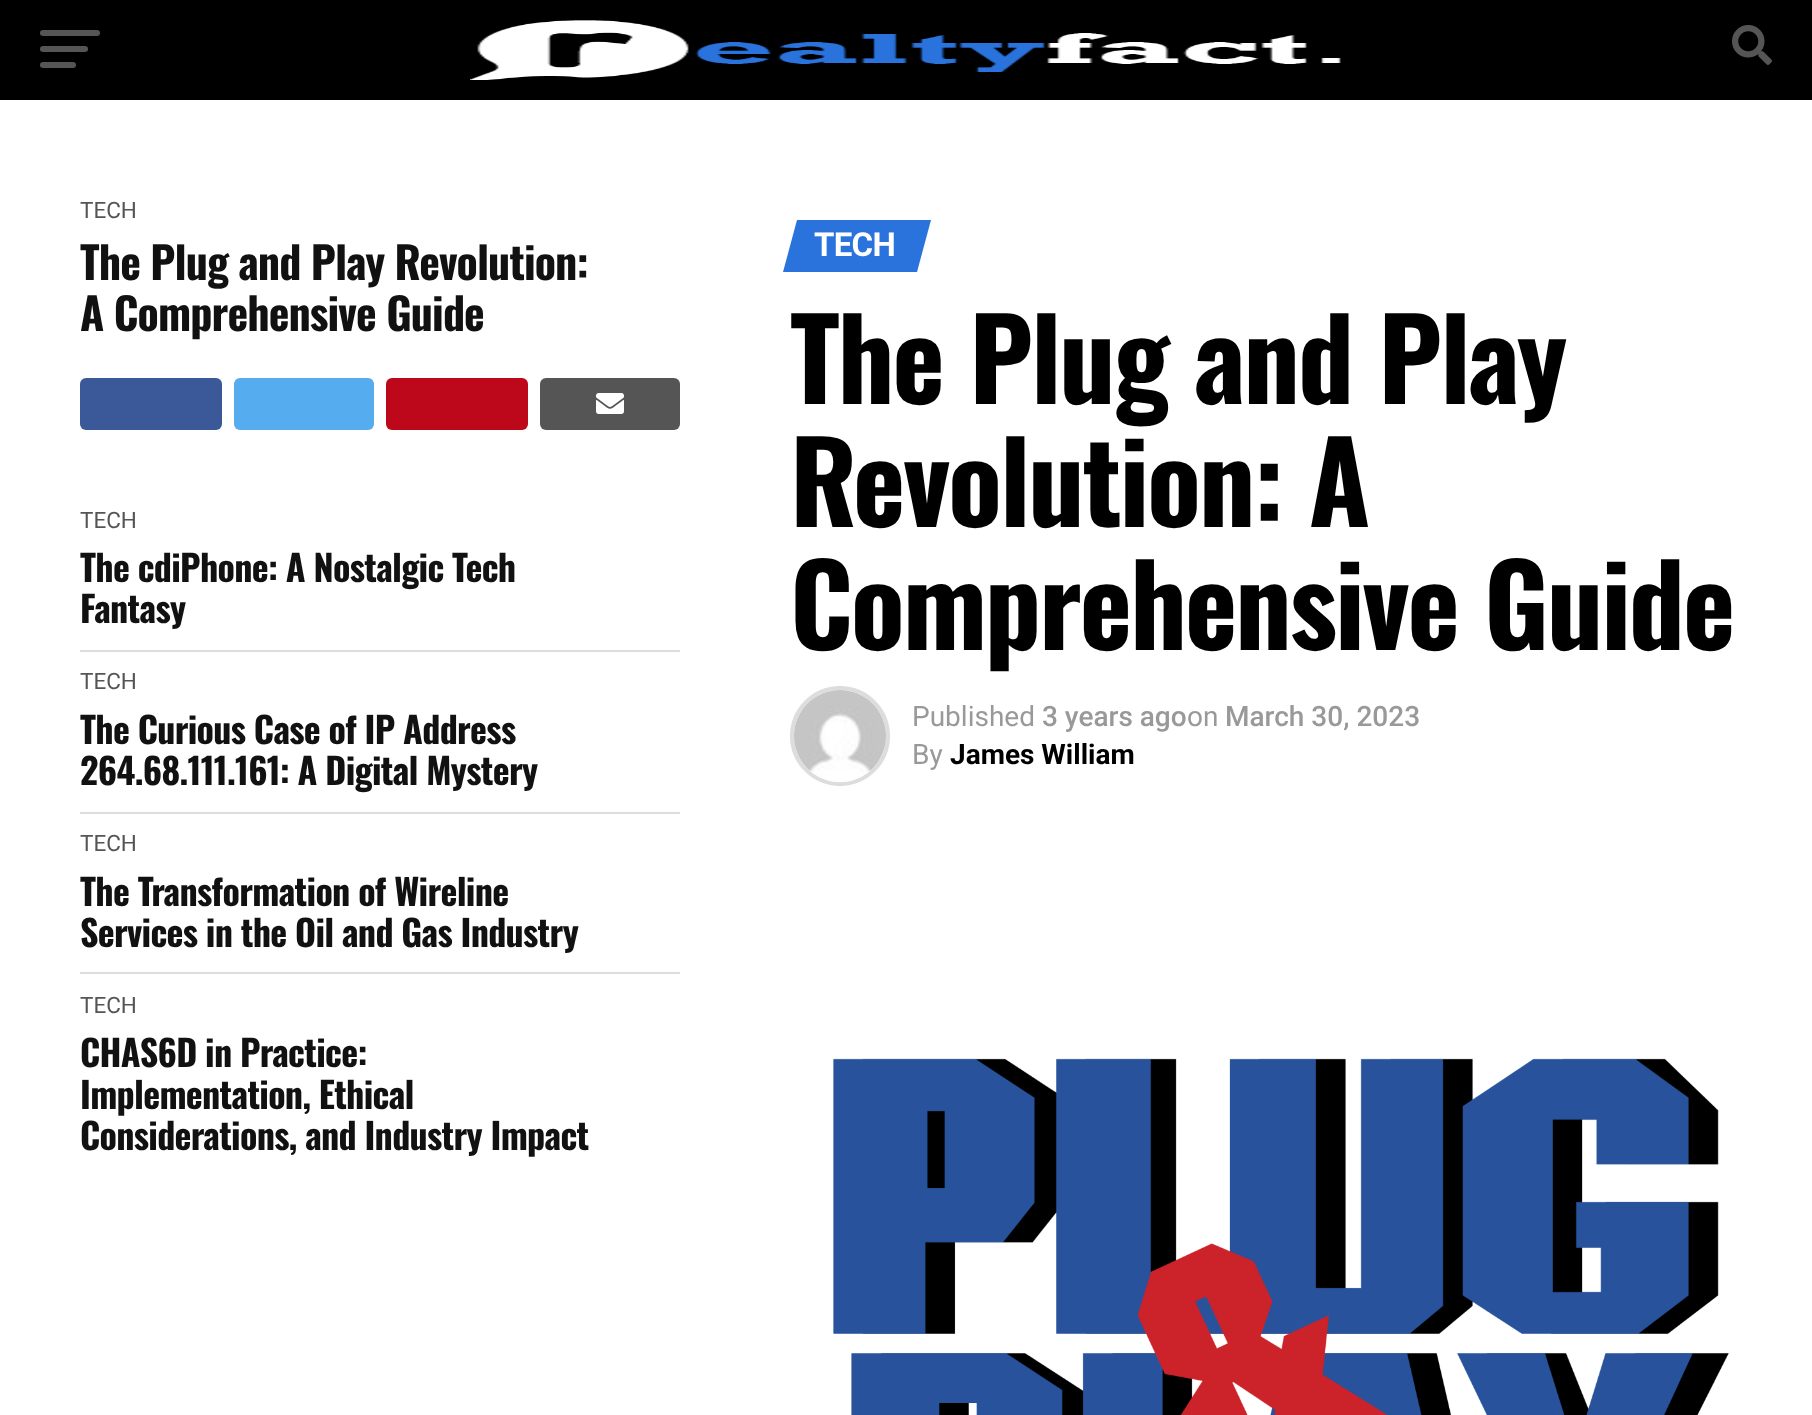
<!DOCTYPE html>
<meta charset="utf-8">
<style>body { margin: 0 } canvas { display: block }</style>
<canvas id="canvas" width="1812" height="1415"></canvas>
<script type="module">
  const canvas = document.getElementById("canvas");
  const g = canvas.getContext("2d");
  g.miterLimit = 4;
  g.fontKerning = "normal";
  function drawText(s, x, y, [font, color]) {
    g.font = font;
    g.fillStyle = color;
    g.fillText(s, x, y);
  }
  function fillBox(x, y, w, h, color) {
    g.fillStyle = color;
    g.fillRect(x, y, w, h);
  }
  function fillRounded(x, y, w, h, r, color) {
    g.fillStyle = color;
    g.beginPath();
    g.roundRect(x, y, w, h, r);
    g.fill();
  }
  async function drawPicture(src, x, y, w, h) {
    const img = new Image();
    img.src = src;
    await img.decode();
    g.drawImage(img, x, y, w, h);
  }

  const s1 = ["22.5px Roboto", "#555555"];
  const s2 = ["bold 44px Oswald", "#111111"];
  const s3 = ["bold 36px Oswald", "#111111"];
  const s4 = ["bold 33px Roboto", "#FFFFFF"];
  const s5 = ["bold 112px Oswald", "#000000"];
  const s6 = ["28px Roboto", "#999999"];
  const s7 = ["500 28px Roboto", "#999999"];
  const s8 = ["bold 28px Roboto", "#000000"];

  fillBox(0, 0, 1812, 1415, "#FFFFFF");
  fillBox(0, 0, 1812, 100, "#000000");
  fillRounded(40, 30, 60, 6, 3, "#555555");
  fillRounded(40, 46, 48, 6, 3, "#555555");
  fillRounded(40, 62, 36, 6, 3, "#555555");
  await drawPicture("pic1.png", 470, 20, 871, 60);
  await drawPicture("pic2.png", 1732, 25, 40, 40);
  drawText("TECH", 80, 218, s1);
  g.letterSpacing = "-0.9px";
  drawText("The Plug and Play Revolution:", 80, 280, s2);
  drawText("A Comprehensive Guide", 80, 331, s2);
  fillRounded(80, 378, 142, 52, 6, "#3B5998");
  fillRounded(234, 378, 140, 52, 6, "#55ACEE");
  fillRounded(386, 378, 142, 52, 6, "#BD081C");
  fillRounded(540, 378, 140, 52, 6, "#555555");
  await drawPicture("pic3.png", 596, 393, 28, 21);
  fillBox(80, 650, 600, 2, "#DDDDDD");
  g.letterSpacing = "0px";
  drawText("TECH", 80, 528, s1);
  g.letterSpacing = "-0.7px";
  drawText("The cdiPhone: A Nostalgic Tech", 80, 582, s3);
  drawText("Fantasy", 80, 623, s3);
  fillBox(80, 812, 600, 2, "#DDDDDD");
  g.letterSpacing = "0px";
  drawText("TECH", 80, 689, s1);
  g.letterSpacing = "-0.7px";
  drawText("The Curious Case of IP Address", 80, 744, s3);
  drawText("264.68.111.161: A Digital Mystery", 80, 785, s3);
  fillBox(80, 972, 600, 2, "#DDDDDD");
  g.letterSpacing = "0px";
  drawText("TECH", 80, 851, s1);
  g.letterSpacing = "-0.7px";
  drawText("The Transformation of Wireline", 80, 906, s3);
  drawText("Services in the Oil and Gas Industry", 80, 947, s3);
  g.letterSpacing = "0px";
  drawText("TECH", 80, 1013, s1);
  g.letterSpacing = "-0.7px";
  drawText("CHAS6D in Practice:", 80, 1067, s3);
  drawText("Implementation, Ethical", 80, 1109, s3);
  drawText("Considerations, and Industry Impact", 80, 1150, s3);
  g.fillStyle = "#2A73DD";
  g.beginPath();
  g.moveTo(797, 220);
  g.lineTo(931, 220);
  g.lineTo(917, 272);
  g.lineTo(783, 272);
  g.closePath();
  g.fill();
  drawText("TECH", 814, 256, s4);
  g.letterSpacing = "-2.25px";
  drawText("The Plug and Play", 790, 404, s5);
  drawText("Revolution: A", 790, 527, s5);
  drawText("Comprehensive Guide", 790, 650, s5);
  g.beginPath();
  g.arc(840, 736, 48, 0, Math.PI * 2);
  g.strokeStyle = "#DDDDDD";
  g.lineWidth = 4;
  g.stroke();
  await drawPicture("pic4.png", 794, 690, 92, 92);
  g.letterSpacing = "0px";
  drawText("Published", 912, 726, s6);
  drawText("3 years ago", 1042, 726, s7);
  drawText("on", 1187, 726, s6);
  drawText("March 30, 2023", 1225, 726, s7);
  drawText("By", 912, 764, s6);
  drawText("James William", 950, 764, s8);
  await drawPicture("pic5.png", 833, 1058, 896, 357);
</script>
